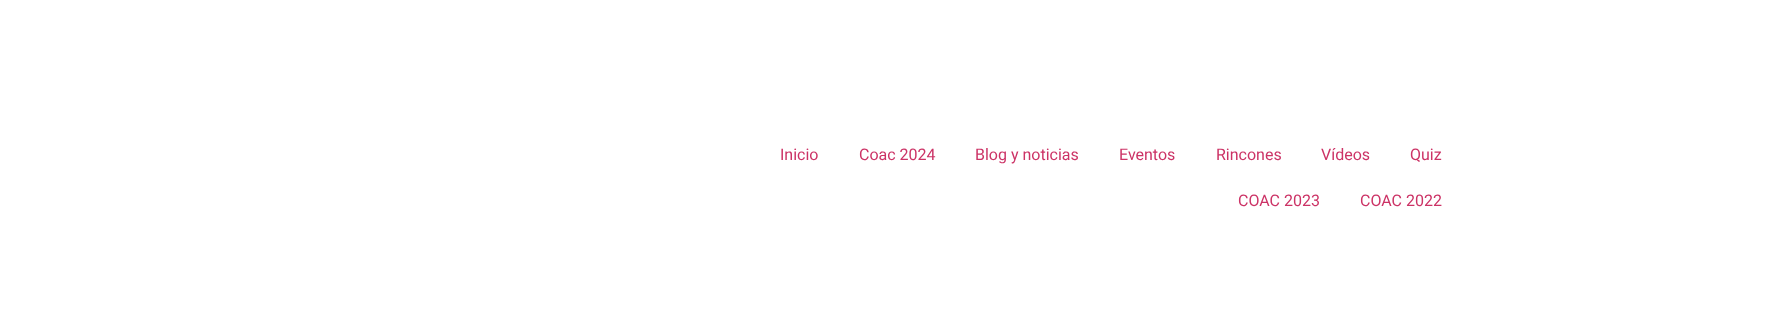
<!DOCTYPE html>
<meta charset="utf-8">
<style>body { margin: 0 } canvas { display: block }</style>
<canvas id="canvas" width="1784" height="319"></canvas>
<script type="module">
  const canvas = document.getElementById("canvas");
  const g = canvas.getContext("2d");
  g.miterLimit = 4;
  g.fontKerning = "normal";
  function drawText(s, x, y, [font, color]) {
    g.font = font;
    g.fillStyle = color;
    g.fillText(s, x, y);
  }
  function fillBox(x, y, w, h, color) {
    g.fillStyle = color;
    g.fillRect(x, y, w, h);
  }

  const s1 = ["16px Roboto", "#CC3366"];

  fillBox(0, 0, 1784, 319, "#FFFFFF");
  drawText("Inicio", 780, 160, s1);
  drawText("Coac 2024", 859, 160, s1);
  drawText("Blog y noticias", 975, 160, s1);
  drawText("Eventos", 1119, 160, s1);
  drawText("Rincones", 1216, 160, s1);
  drawText("Vídeos", 1321, 160, s1);
  drawText("Quiz", 1410, 160, s1);
  drawText("COAC 2023", 1238, 206, s1);
  drawText("COAC 2022", 1360, 206, s1);
</script>
